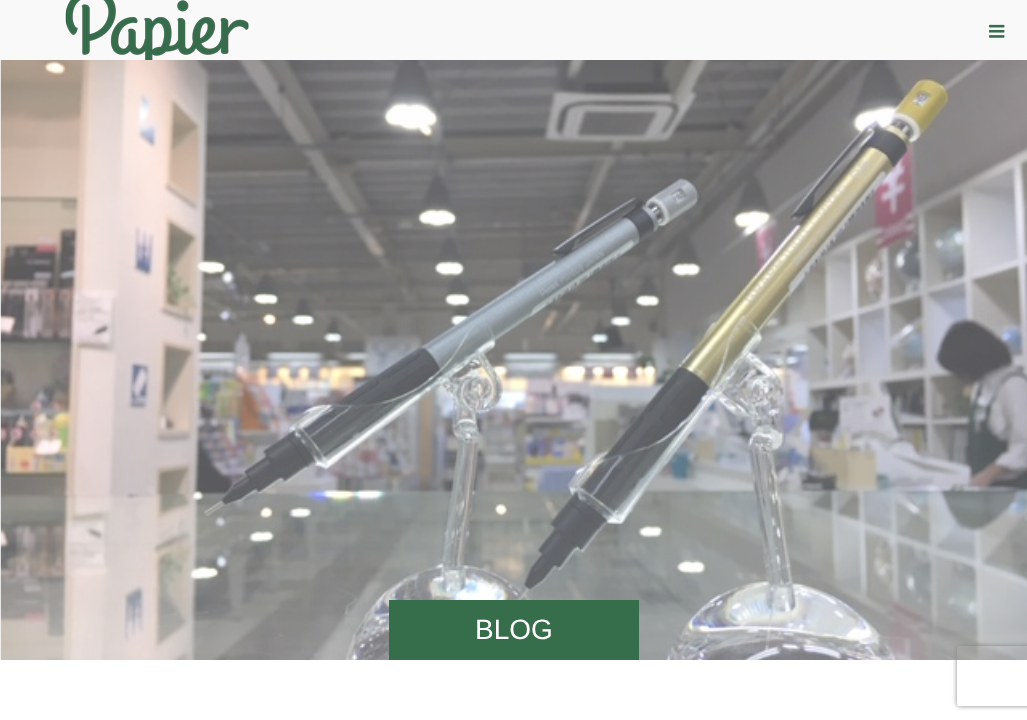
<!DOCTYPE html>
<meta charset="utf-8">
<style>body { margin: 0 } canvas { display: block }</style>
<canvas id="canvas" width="1027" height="720"></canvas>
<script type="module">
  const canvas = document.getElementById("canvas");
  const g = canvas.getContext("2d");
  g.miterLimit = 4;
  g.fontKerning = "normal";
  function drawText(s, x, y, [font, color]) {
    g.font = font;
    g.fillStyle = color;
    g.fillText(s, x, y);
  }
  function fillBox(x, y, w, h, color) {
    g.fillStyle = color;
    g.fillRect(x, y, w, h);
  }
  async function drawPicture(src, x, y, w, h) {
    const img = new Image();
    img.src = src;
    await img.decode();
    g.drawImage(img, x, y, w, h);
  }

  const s1 = ["28px Liberation Sans", "#FFFFFF"];

  fillBox(0, 0, 1027, 720, "#FFFFFF");
  fillBox(0, 0, 1027, 60, "#F9F9F9");
  await drawPicture("pic1.png", 65, 0, 184, 60);
  await drawPicture("pic2.png", 989, 24, 16, 14);
  await drawPicture("pic3.png", 0, 60, 1027, 600);
  fillBox(389, 600, 250, 60, "#366D4B");
  drawText("BLOG", 475, 639, s1);
  g.save();
  g.beginPath();
  g.moveTo(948, 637);
  g.lineTo(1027, 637);
  g.lineTo(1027, 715);
  g.lineTo(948, 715);
  g.closePath();
  g.moveTo(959, 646);
  g.lineTo(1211, 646);
  g.bezierCurveTo(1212, 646, 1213, 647, 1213, 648);
  g.lineTo(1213, 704);
  g.bezierCurveTo(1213, 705, 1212, 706, 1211, 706);
  g.lineTo(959, 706);
  g.bezierCurveTo(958, 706, 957, 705, 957, 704);
  g.lineTo(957, 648);
  g.bezierCurveTo(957, 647, 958, 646, 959, 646);
  g.closePath();
  g.clip("evenodd");
  g.fillStyle = "#848484";
  g.filter = "blur(2.5px)";
  g.beginPath();
  g.roundRect(957, 646, 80, 60, 2);
  g.fill();
  g.filter = "none";
  g.restore();
</script>
